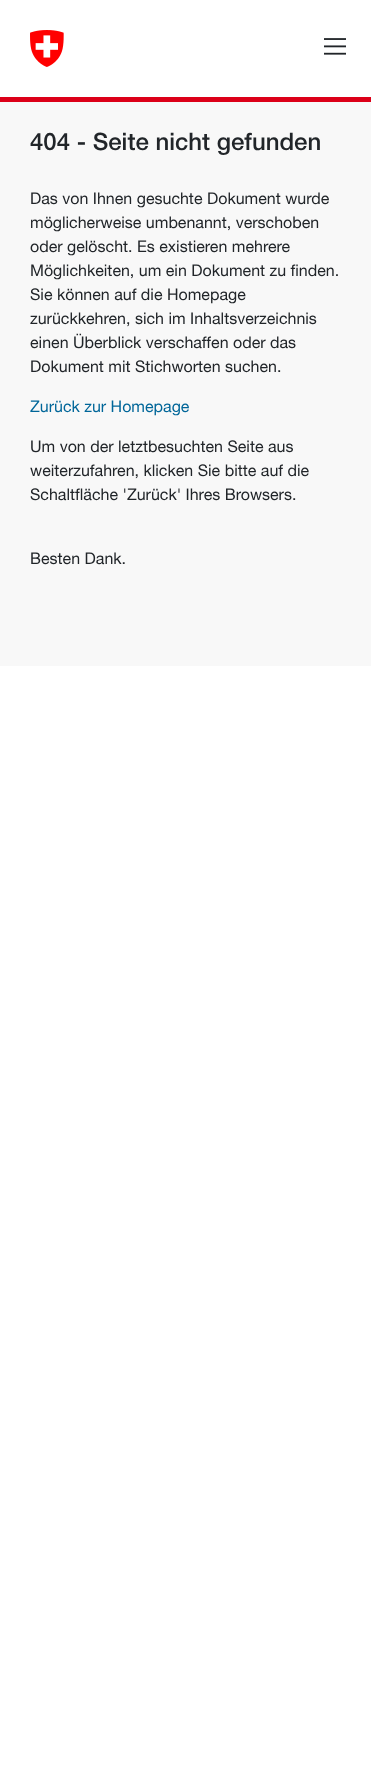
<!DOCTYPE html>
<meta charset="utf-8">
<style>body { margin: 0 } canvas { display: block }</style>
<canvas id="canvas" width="371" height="1779"></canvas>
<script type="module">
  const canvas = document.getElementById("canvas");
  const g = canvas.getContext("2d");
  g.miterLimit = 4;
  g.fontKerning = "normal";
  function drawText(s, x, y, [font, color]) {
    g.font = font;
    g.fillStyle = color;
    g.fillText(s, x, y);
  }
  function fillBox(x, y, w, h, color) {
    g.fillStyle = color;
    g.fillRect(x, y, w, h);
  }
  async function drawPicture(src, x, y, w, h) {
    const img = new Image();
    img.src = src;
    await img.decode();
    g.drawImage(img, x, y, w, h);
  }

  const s1 = ["500 24px 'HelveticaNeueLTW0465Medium'", "#212529"];
  const s2 = ["16px 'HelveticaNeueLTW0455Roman'", "#212529"];
  const s3 = ["16px 'HelveticaNeueLTW0455Roman'", "#006699"];

  fillBox(0, 0, 371, 1779, "#FFFFFF");
  fillBox(0, 97, 371, 5, "#DC0018");
  await drawPicture("pic1.png", 30, 30, 34, 37);
  await drawPicture("pic2.png", 324, 38, 22, 17);
  fillBox(0, 102, 371, 564, "#F8F8F8");
  drawText("404 - Seite nicht gefunden", 30, 150, s1);
  drawText("Das von Ihnen gesuchte Dokument wurde", 30, 204, s2);
  drawText("möglicherweise umbenannt, verschoben", 30, 228, s2);
  drawText("oder gelöscht. Es existieren mehrere", 30, 252, s2);
  drawText("Möglichkeiten, um ein Dokument zu finden.", 30, 276, s2);
  drawText("Sie können auf die Homepage", 30, 300, s2);
  drawText("zurückkehren, sich im Inhaltsverzeichnis", 30, 324, s2);
  drawText("einen Überblick verschaffen oder das", 30, 348, s2);
  drawText("Dokument mit Stichworten suchen.", 30, 372, s2);
  drawText("Zurück zur Homepage", 30, 412, s3);
  drawText("Um von der letztbesuchten Seite aus", 30, 452, s2);
  drawText("weiterzufahren, klicken Sie bitte auf die", 30, 476, s2);
  drawText("Schaltfläche 'Zurück' Ihres Browsers.", 30, 500, s2);
  drawText("Besten Dank.", 30, 564, s2);
</script>
